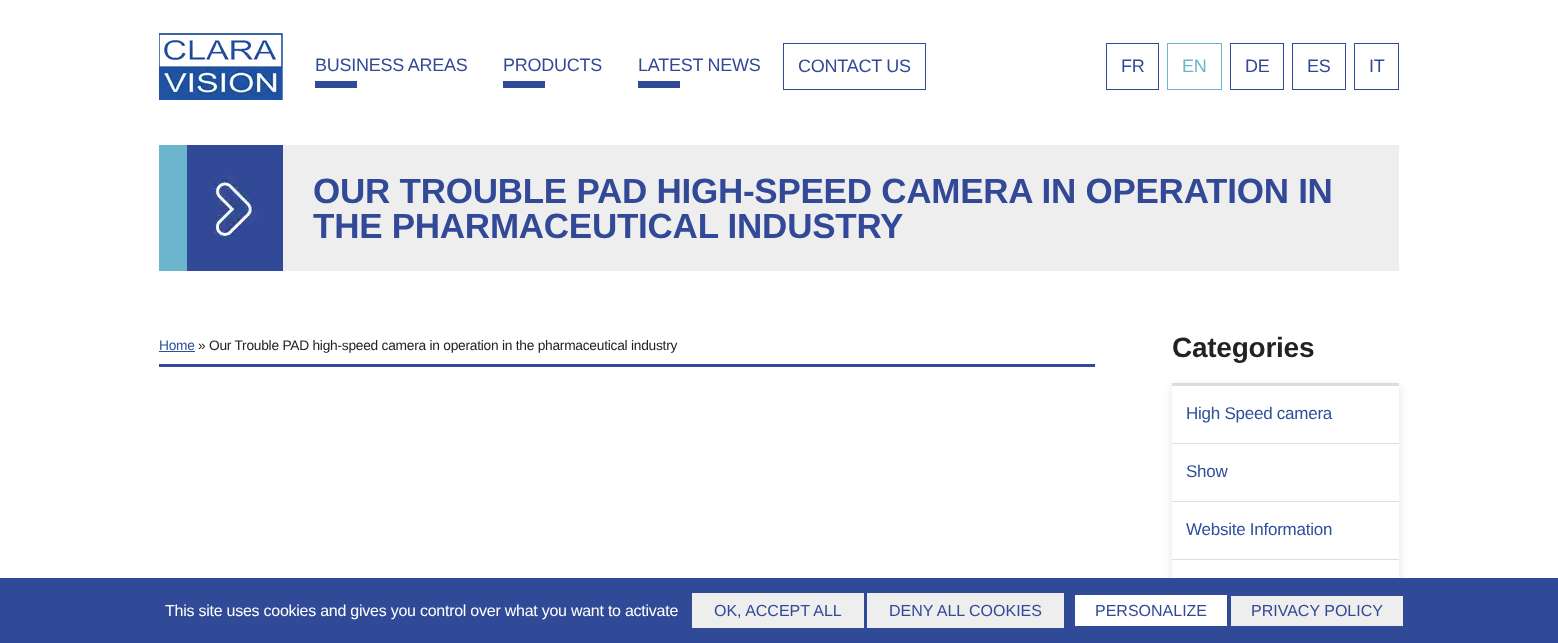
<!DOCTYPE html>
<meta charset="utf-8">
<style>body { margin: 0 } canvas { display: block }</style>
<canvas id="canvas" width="1558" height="643"></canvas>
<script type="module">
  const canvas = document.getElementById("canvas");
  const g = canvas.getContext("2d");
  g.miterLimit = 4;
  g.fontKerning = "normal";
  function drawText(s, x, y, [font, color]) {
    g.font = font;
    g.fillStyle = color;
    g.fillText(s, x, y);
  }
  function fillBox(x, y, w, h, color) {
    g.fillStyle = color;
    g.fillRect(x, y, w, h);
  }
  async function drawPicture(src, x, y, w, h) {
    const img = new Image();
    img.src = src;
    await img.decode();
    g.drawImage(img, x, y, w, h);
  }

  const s1 = ["18px Liberation Sans", "#324997"];
  const s2 = ["18px Liberation Sans", "#6BB5CE"];
  const s3 = ["bold 35px Liberation Sans", "#324997"];
  const s4 = ["13.75px Liberation Sans", "#2D509D"];
  const s5 = ["13.75px Liberation Sans", "#222222"];
  const s6 = ["bold 28px Liberation Sans", "#222222"];
  const s7 = ["17px Liberation Sans", "#2D509D"];
  const s8 = ["16px Liberation Sans", "#FFFFFF"];
  const s9 = ["16px Liberation Sans", "#324997"];

  fillBox(0, 0, 1558, 643, "#FFFFFF");
  await drawPicture("pic1.png", 159, 33, 124, 67);
  g.letterSpacing = "-0.25px";
  drawText("BUSINESS AREAS", 315, 71, s1);
  fillBox(315, 81, 42, 7, "#304A97");
  drawText("PRODUCTS", 503, 71, s1);
  fillBox(503, 81, 42, 7, "#304A97");
  drawText("LATEST NEWS", 638, 71, s1);
  fillBox(638, 81, 42, 7, "#304A97");
  g.strokeStyle = "#324997";
  g.strokeRect(783.5, 43.5, 142, 46);
  drawText("CONTACT US", 798, 72, s1);
  g.strokeRect(1106.5, 43.5, 52, 46);
  drawText("FR", 1121, 72, s1);
  g.strokeStyle = "#6BB5CE";
  g.strokeRect(1167.5, 43.5, 54, 46);
  drawText("EN", 1182, 72, s2);
  g.strokeStyle = "#324997";
  g.strokeRect(1230.5, 43.5, 53, 46);
  drawText("DE", 1245, 72, s1);
  g.strokeRect(1292.5, 43.5, 53, 46);
  drawText("ES", 1307, 72, s1);
  g.strokeRect(1354.5, 43.5, 44, 46);
  drawText("IT", 1369, 72, s1);
  fillBox(283, 145, 1116, 126, "#EEEEEE");
  fillBox(187, 145, 96, 126, "#324997");
  await drawPicture("pic2.png", 209, 175, 49, 65);
  fillBox(159, 145, 28, 126, "#6BB5CE");
  drawText("OUR TROUBLE PAD HIGH-SPEED CAMERA IN OPERATION IN", 313, 203, s3);
  drawText("THE PHARMACEUTICAL INDUSTRY", 313, 238, s3);
  fillBox(159, 364, 936, 3, "#324997");
  drawText("Home", 159, 350, s4);
  fillBox(159, 351, 36, 1, "#2D509D");
  drawText("» Our Trouble PAD high-speed camera in operation in the pharmaceutical industry", 198, 350, s5);
  drawText("Categories", 1172, 357, s6);
  g.save();
  g.beginPath();
  g.moveTo(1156, 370);
  g.lineTo(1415, 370);
  g.lineTo(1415, 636);
  g.lineTo(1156, 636);
  g.closePath();
  g.moveTo(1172, 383);
  g.lineTo(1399, 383);
  g.lineTo(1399, 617);
  g.lineTo(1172, 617);
  g.closePath();
  g.clip("evenodd");
  g.fillStyle = "rgba(0, 0, 0, 0.1)";
  g.filter = "blur(5px)";
  g.beginPath();
  g.rect(1172, 386, 227, 234);
  g.fill();
  g.filter = "none";
  g.restore();
  fillBox(1172, 383, 227, 3, "#DDDDDD");
  drawText("High Speed camera", 1186, 419, s7);
  fillBox(1172, 443, 227, 1, "#DDDDDD");
  drawText("Show", 1186, 477, s7);
  fillBox(1172, 501, 227, 1, "#DDDDDD");
  drawText("Website Information", 1186, 535, s7);
  fillBox(1172, 559, 227, 1, "#DDDDDD");
  fillBox(0, 578, 1558, 65, "#314A97");
  drawText("This site uses cookies and gives you control over what you want to activate", 165, 616, s8);
  fillBox(692, 593, 172, 35, "#EEEEEE");
  g.letterSpacing = "0px";
  drawText("OK, ACCEPT ALL", 714, 616, s9);
  fillBox(867, 593, 197, 35, "#EEEEEE");
  drawText("DENY ALL COOKIES", 889, 616, s9);
  fillBox(1075, 595, 152, 31, "#FFFFFF");
  drawText("PERSONALIZE", 1095, 616, s9);
  fillBox(1231, 596, 172, 30, "#EEEEEE");
  drawText("PRIVACY POLICY", 1251, 616, s9);
</script>
